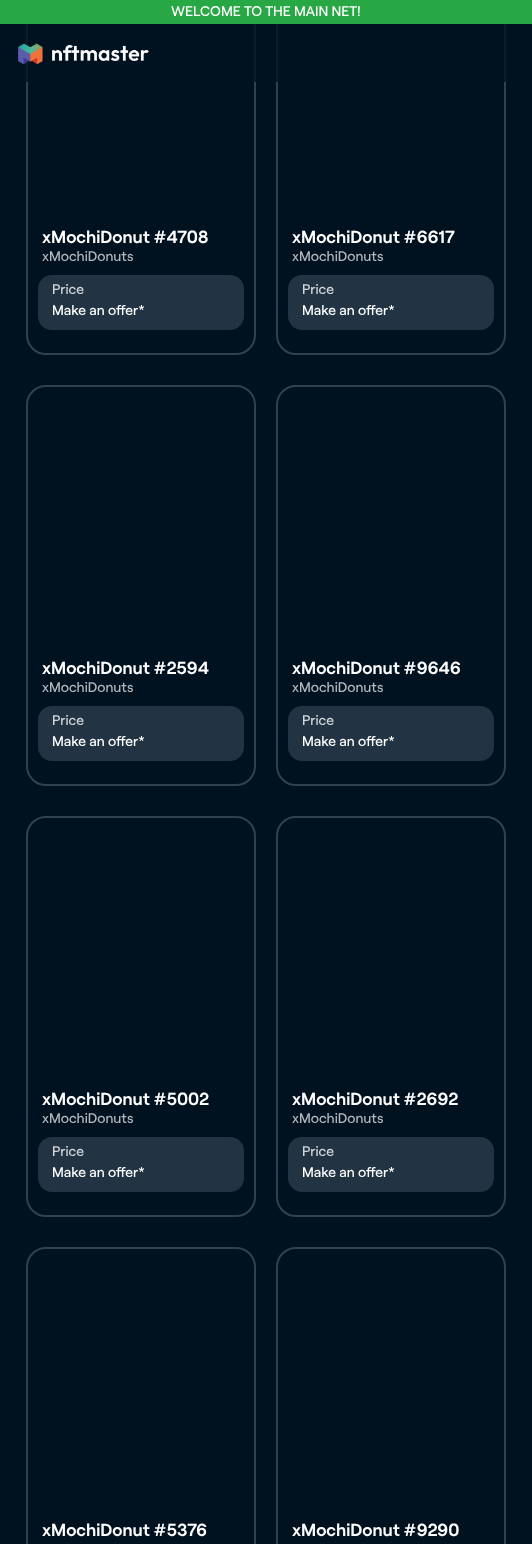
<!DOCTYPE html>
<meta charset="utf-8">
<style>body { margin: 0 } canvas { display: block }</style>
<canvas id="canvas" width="532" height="1544"></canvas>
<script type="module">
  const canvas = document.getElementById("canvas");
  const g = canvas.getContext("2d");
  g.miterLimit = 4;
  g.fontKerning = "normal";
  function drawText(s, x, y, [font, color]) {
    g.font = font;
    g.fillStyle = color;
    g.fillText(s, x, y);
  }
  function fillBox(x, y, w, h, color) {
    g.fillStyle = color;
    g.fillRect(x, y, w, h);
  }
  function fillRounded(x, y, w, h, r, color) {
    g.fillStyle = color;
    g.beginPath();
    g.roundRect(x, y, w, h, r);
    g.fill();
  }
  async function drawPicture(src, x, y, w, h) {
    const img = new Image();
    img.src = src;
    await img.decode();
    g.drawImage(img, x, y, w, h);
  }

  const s1 = ["500 14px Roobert", "#FFFFFF"];
  const s2 = ["600 17.5px Roobert", "#FFFFFF"];
  const s3 = ["500 14px Roobert", "#D3D6DA"];
  const s4 = ["500 14px Roobert", "#B3B8BC"];

  fillBox(0, 0, 532, 1544, "#001220");
  g.beginPath();
  g.roundRect(27, -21, 228, 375, 19);
  g.strokeStyle = "#33414D";
  g.lineWidth = 2;
  g.stroke();
  g.beginPath();
  g.roundRect(277, -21, 228, 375, 19);
  g.stroke();
  fillBox(0, 0, 532, 24, "#28A745");
  drawText("WELCOME TO THE MAIN NET!", 171, 16, s1);
  fillBox(26, 24, 480, 58, "rgba(0, 18, 32, 0.8)");
  await drawPicture("pic1.png", 18, 43, 131, 22);
  g.beginPath();
  g.roundRect(477.5, 31.5, 36, 27, 4.5);
  g.strokeStyle = "rgba(0, 0, 0, 0.1)";
  g.lineWidth = 1;
  g.stroke();
  drawText("xMochiDonut #4708", 42, 243, s2);
  fillRounded(38, 275, 206, 55, 14, "#223344");
  drawText("Price", 52, 294, s3);
  drawText("Make an offer*", 52, 315, s1);
  drawText("xMochiDonuts", 42, 261, s4);
  drawText("xMochiDonut #6617", 292, 243, s2);
  fillRounded(288, 275, 206, 55, 14, "#223344");
  drawText("Price", 302, 294, s3);
  drawText("Make an offer*", 302, 315, s1);
  drawText("xMochiDonuts", 292, 261, s4);
  g.beginPath();
  g.roundRect(27, 386, 228, 399, 19);
  g.strokeStyle = "#33414D";
  g.lineWidth = 2;
  g.stroke();
  drawText("xMochiDonut #2594", 42, 674, s2);
  fillRounded(38, 706, 206, 55, 14, "#223344");
  drawText("Price", 52, 725, s3);
  drawText("Make an offer*", 52, 746, s1);
  drawText("xMochiDonuts", 42, 692, s4);
  g.beginPath();
  g.roundRect(277, 386, 228, 399, 19);
  g.stroke();
  drawText("xMochiDonut #9646", 292, 674, s2);
  fillRounded(288, 706, 206, 55, 14, "#223344");
  drawText("Price", 302, 725, s3);
  drawText("Make an offer*", 302, 746, s1);
  drawText("xMochiDonuts", 292, 692, s4);
  g.beginPath();
  g.roundRect(27, 817, 228, 399, 19);
  g.stroke();
  drawText("xMochiDonut #5002", 42, 1105, s2);
  fillRounded(38, 1137, 206, 55, 14, "#223344");
  drawText("Price", 52, 1156, s3);
  drawText("Make an offer*", 52, 1177, s1);
  drawText("xMochiDonuts", 42, 1123, s4);
  g.beginPath();
  g.roundRect(277, 817, 228, 399, 19);
  g.stroke();
  drawText("xMochiDonut #2692", 292, 1105, s2);
  fillRounded(288, 1137, 206, 55, 14, "#223344");
  drawText("Price", 302, 1156, s3);
  drawText("Make an offer*", 302, 1177, s1);
  drawText("xMochiDonuts", 292, 1123, s4);
  g.beginPath();
  g.roundRect(27, 1248, 228, 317, 19);
  g.stroke();
  drawText("xMochiDonut #5376", 42, 1536, s2);
  g.beginPath();
  g.roundRect(277, 1248, 228, 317, 19);
  g.stroke();
  drawText("xMochiDonut #9290", 292, 1536, s2);
</script>
